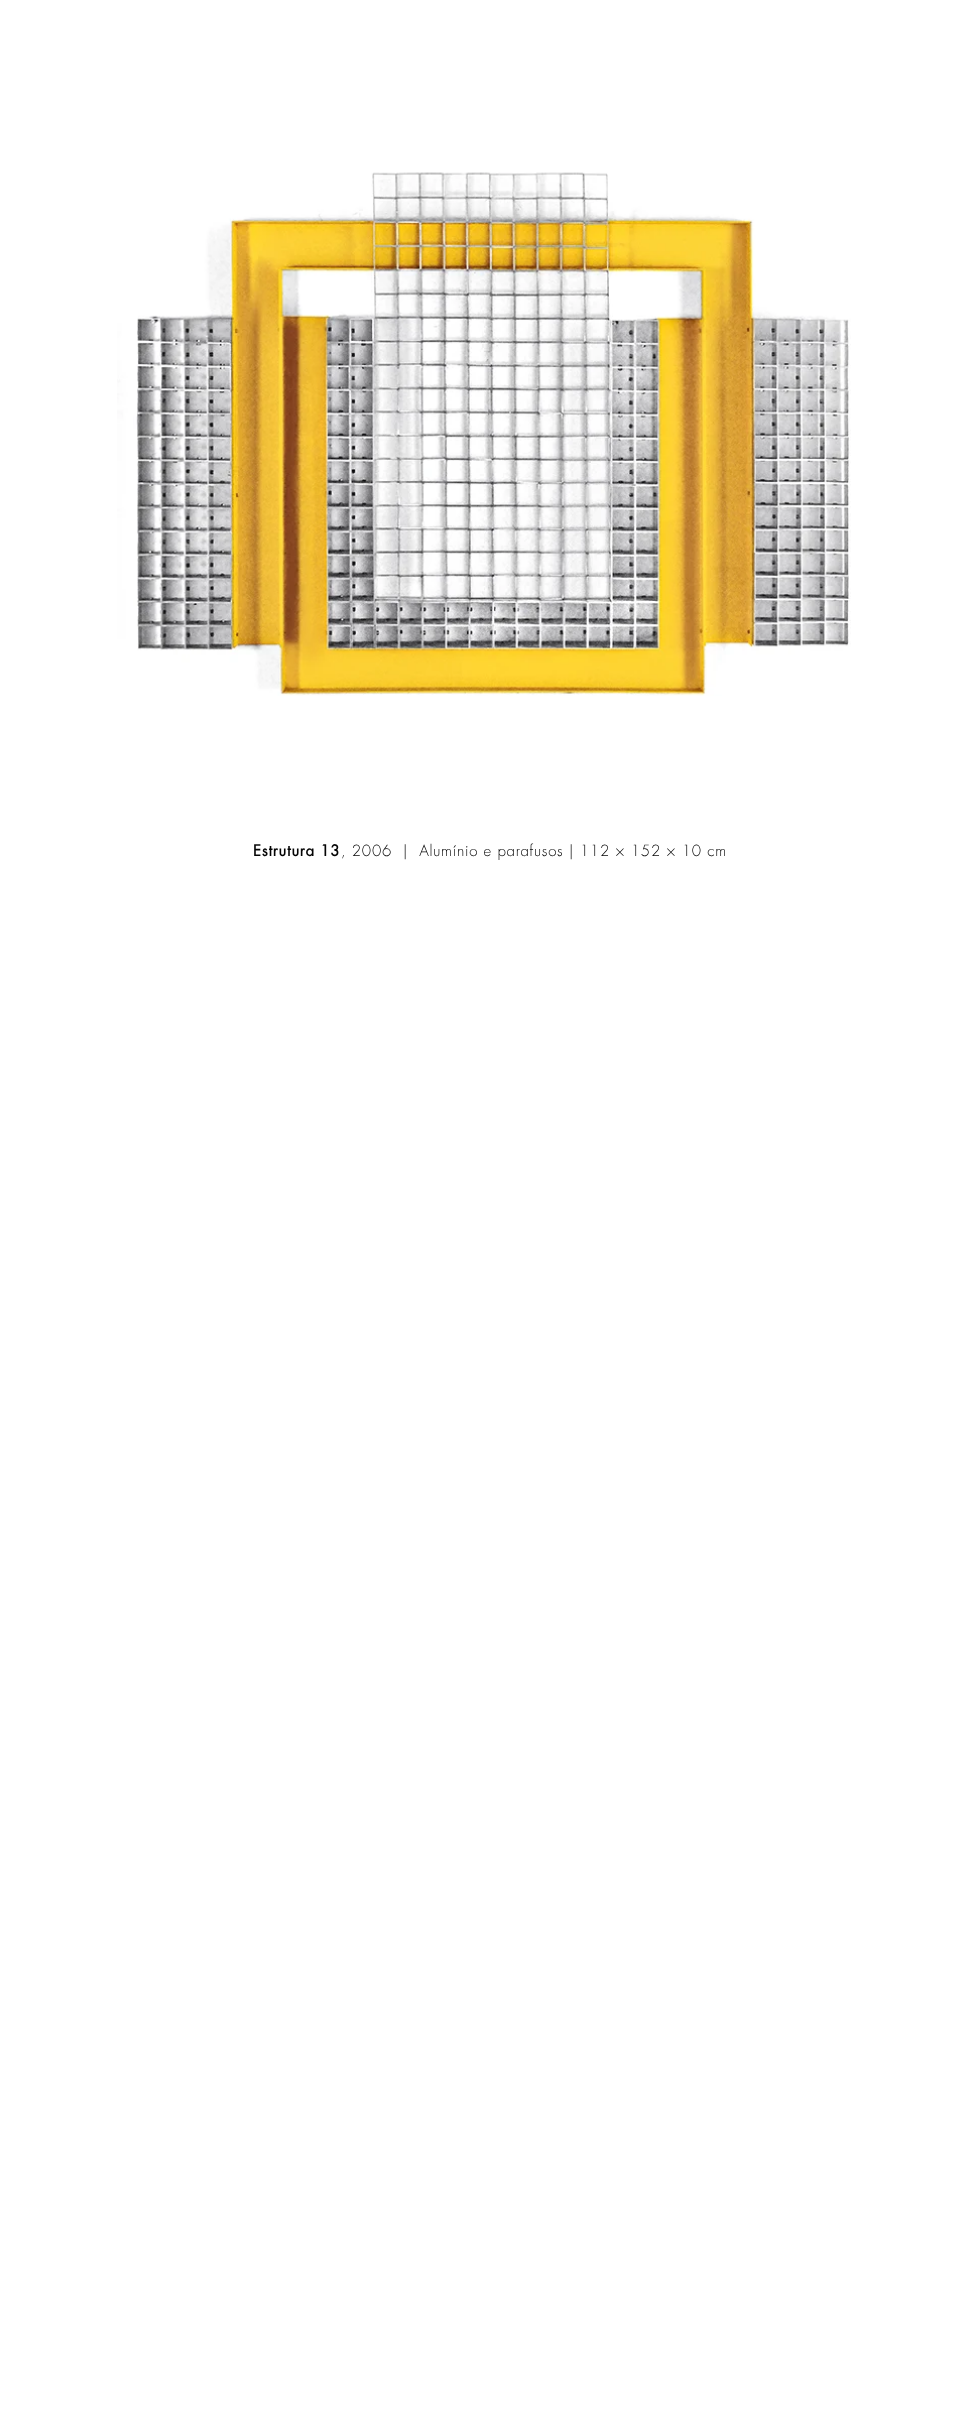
<!DOCTYPE html>
<meta charset="utf-8">
<style>body { margin: 0 } canvas { display: block }</style>
<canvas id="canvas" width="970" height="2433"></canvas>
<script type="module">
  const canvas = document.getElementById("canvas");
  const g = canvas.getContext("2d");
  g.miterLimit = 4;
  g.fontKerning = "normal";
  function drawText(s, x, y, [font, color]) {
    g.font = font;
    g.fillStyle = color;
    g.fillText(s, x, y);
  }
  function fillBox(x, y, w, h, color) {
    g.fillStyle = color;
    g.fillRect(x, y, w, h);
  }
  async function drawPicture(src, x, y, w, h) {
    const img = new Image();
    img.src = src;
    await img.decode();
    g.drawImage(img, x, y, w, h);
  }

  const s1 = ["bold 15px futura", "#050505"];
  const s2 = ["300 15px futura", "#050505"];

  fillBox(0, 0, 970, 2433, "#FFFFFF");
  await drawPicture("pic1.png", 117, 172, 734, 524);
  g.letterSpacing = "0.75px";
  drawText("Estrutura 13", 253, 856, s1);
  drawText(", 2006  |  Alumínio e parafusos | 112 × 152 × 10 cm", 341, 856, s2);
</script>
